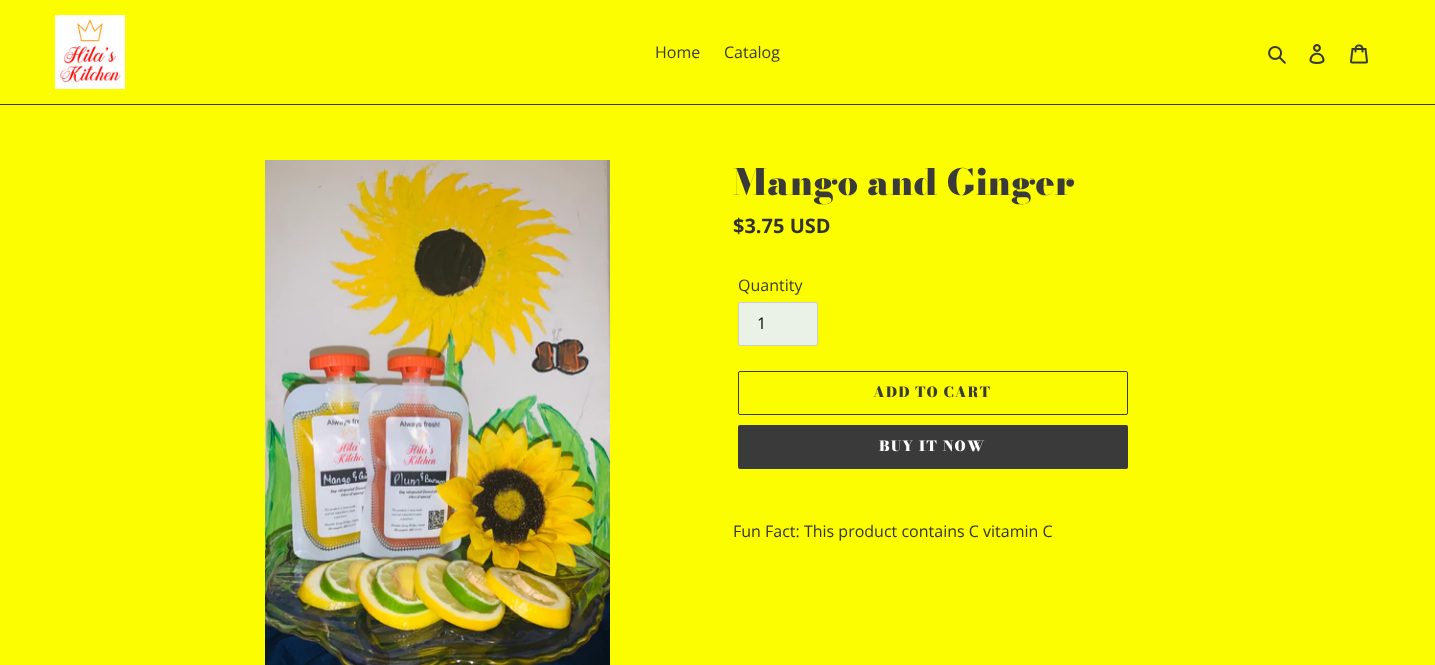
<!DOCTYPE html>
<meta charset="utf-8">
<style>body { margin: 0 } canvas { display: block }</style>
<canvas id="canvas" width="1435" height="665"></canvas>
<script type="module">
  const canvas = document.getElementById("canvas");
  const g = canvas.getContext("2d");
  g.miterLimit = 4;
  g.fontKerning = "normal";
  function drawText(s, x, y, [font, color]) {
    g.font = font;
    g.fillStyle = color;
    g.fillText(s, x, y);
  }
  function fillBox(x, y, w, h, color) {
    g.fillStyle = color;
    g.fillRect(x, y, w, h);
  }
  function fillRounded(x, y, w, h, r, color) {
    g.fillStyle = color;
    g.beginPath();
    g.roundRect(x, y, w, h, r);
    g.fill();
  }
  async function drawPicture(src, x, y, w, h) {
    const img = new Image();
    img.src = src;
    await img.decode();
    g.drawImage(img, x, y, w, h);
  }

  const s1 = ["16px Open Sans", "#3A3A3A"];
  const s2 = ["900 36px Bodoni Moda", "#3A3A3A"];
  const s3 = ["bold 20px Open Sans", "#333232"];
  const s4 = ["16px Open Sans", "#000000"];
  const s5 = ["900 14px 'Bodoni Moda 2'", "#3A3A3A"];
  const s6 = ["900 14px 'Bodoni Moda 2'", "#FFFFFF"];
  const s7 = ["16px Open Sans", "#333232"];

  fillBox(0, 0, 1435, 665, "#FCFE00");
  fillBox(0, 104, 1435, 1, "#3A3A3A");
  await drawPicture("pic1.png", 55, 15, 70, 74);
  drawText("Home", 655, 58, s1);
  drawText("Catalog", 724, 58, s1);
  await drawPicture("pic2.png", 1268, 46, 18, 18);
  await drawPicture("pic3.png", 1309, 44, 16, 20);
  await drawPicture("pic4.png", 1350, 44, 18, 20);
  await drawPicture("pic5.png", 265, 160, 345, 505);
  drawText("Mango and Ginger", 733, 195, s2);
  drawText("$3.75 USD", 733, 233, s3);
  drawText("Quantity", 738, 291, s1);
  g.fillStyle = "#EAF2E8";
  g.beginPath();
  g.roundRect(738.5, 302.5, 79, 43, 1.5);
  g.fill();
  g.strokeStyle = "#CCCCCC";
  g.stroke();
  drawText("1", 757, 329, s4);
  g.beginPath();
  g.roundRect(738.5, 371.5, 389, 43, 1.5);
  g.strokeStyle = "#3A3A3A";
  g.stroke();
  g.letterSpacing = "1.1px";
  drawText("ADD TO CART", 873, 397, s5);
  fillRounded(738, 425, 390, 44, 2, "#3A3A3A");
  drawText("BUY IT NOW", 879, 451, s6);
  g.letterSpacing = "0px";
  drawText("Fun Fact: This product contains C vitamin C", 733, 537, s7);
</script>
